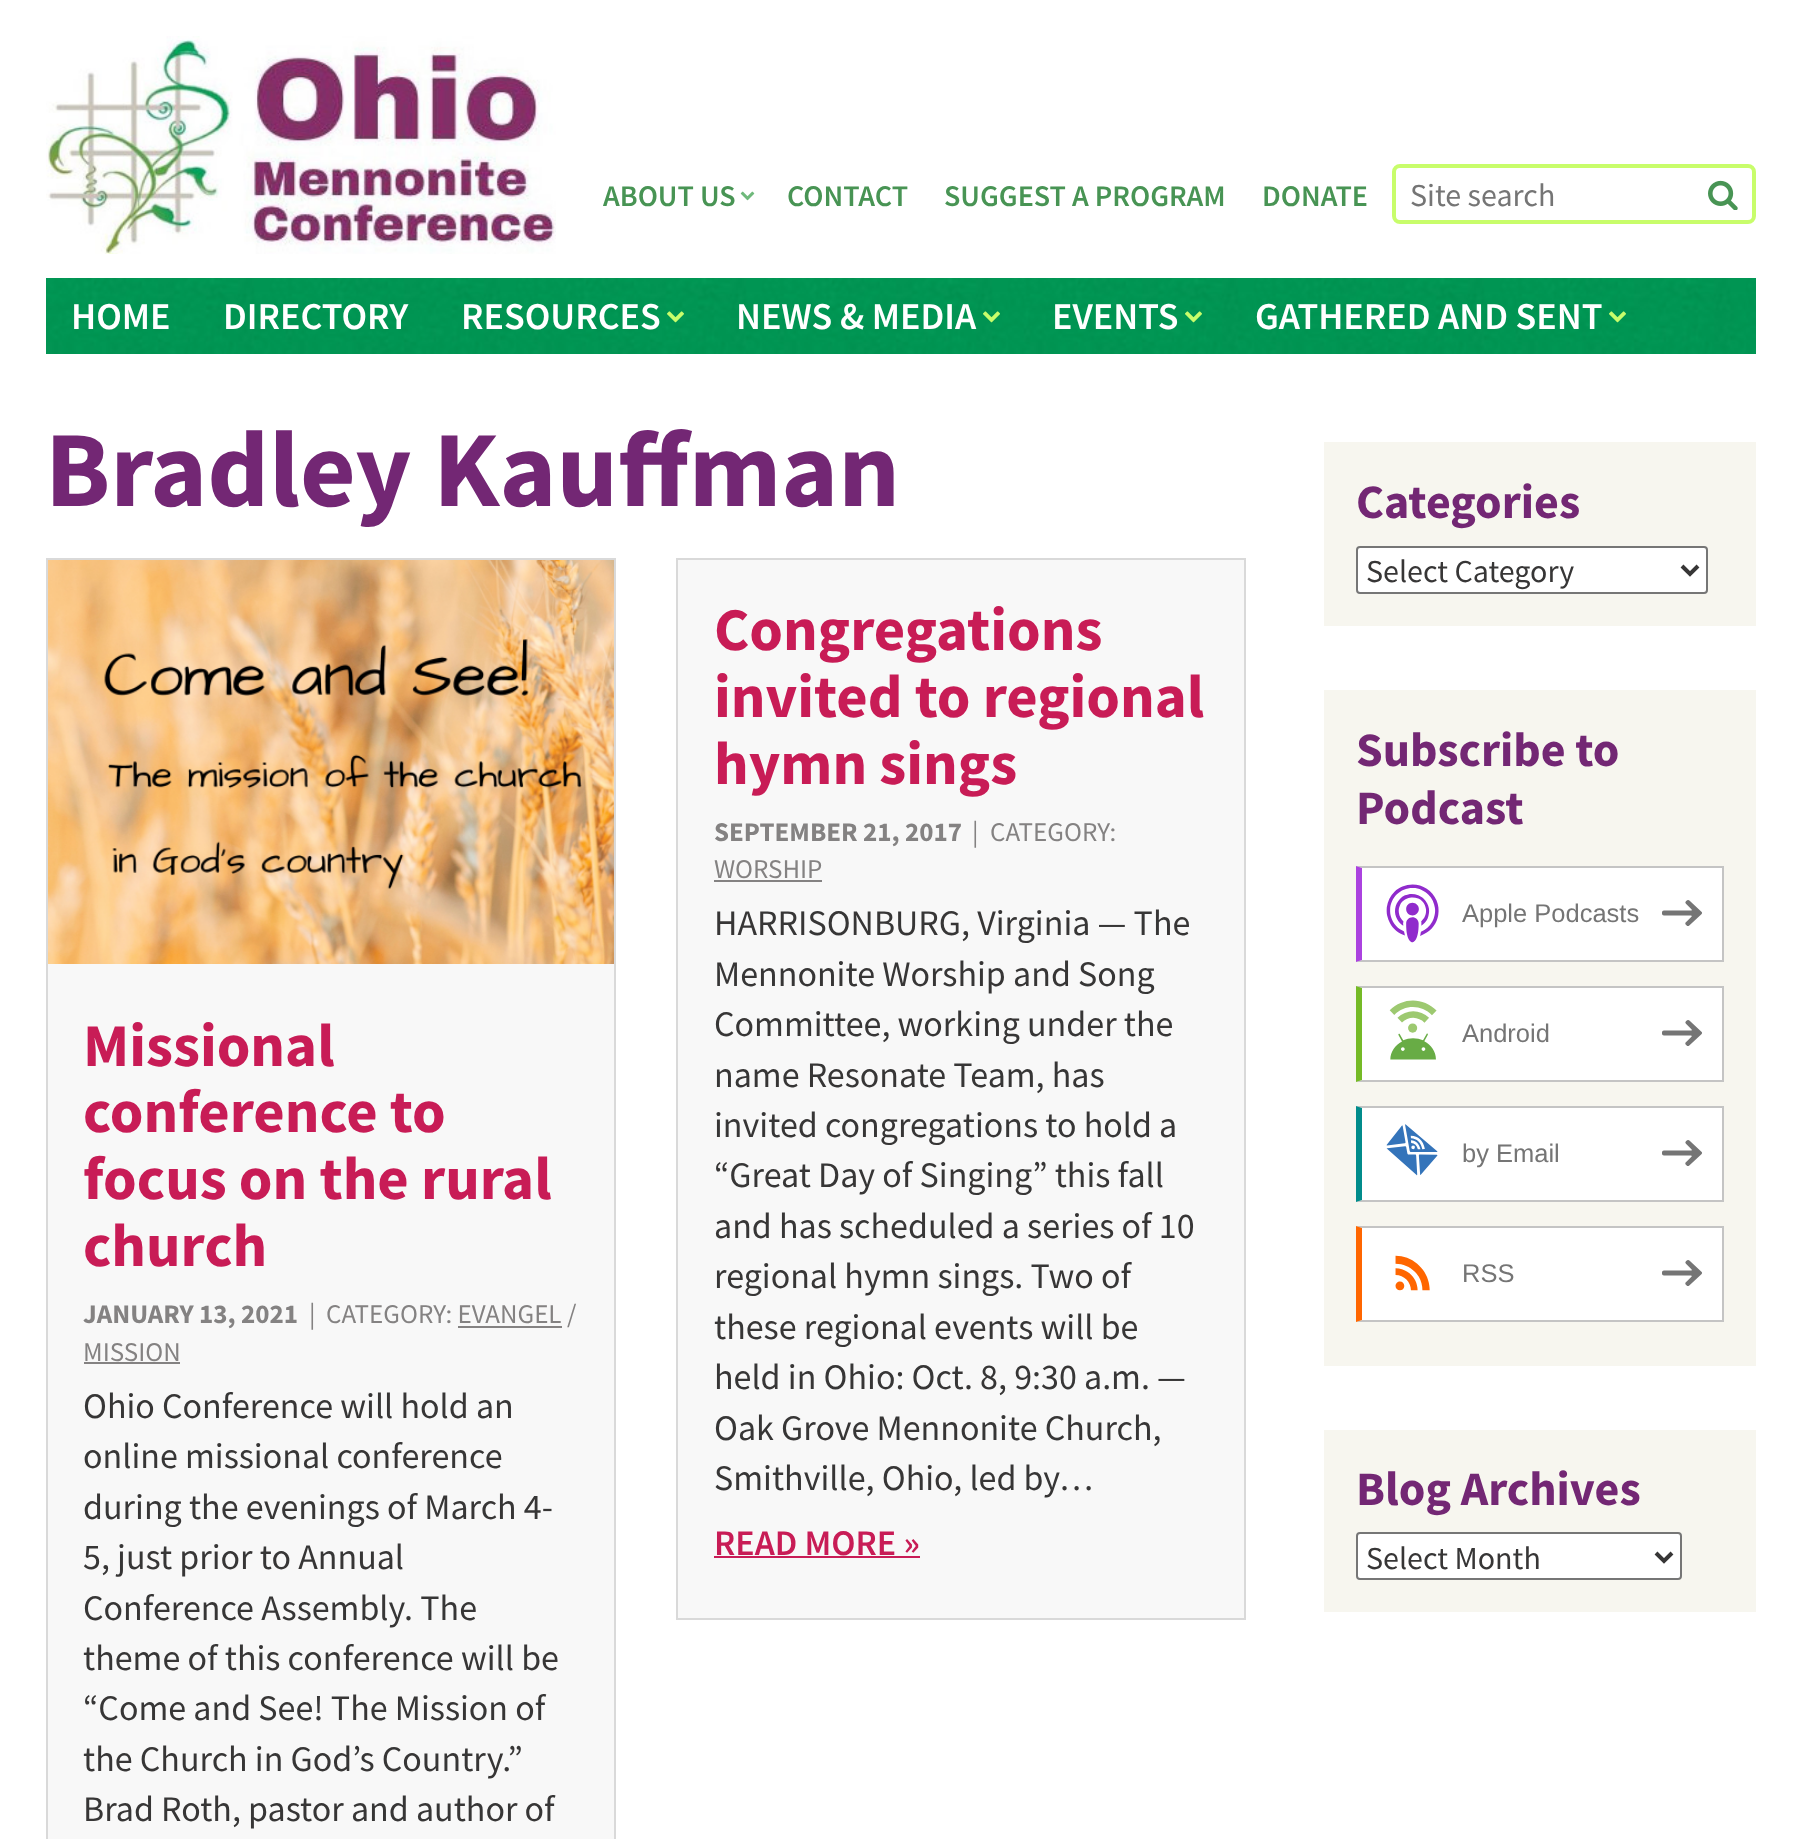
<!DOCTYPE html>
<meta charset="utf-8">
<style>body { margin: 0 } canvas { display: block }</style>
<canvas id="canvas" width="1802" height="1839"></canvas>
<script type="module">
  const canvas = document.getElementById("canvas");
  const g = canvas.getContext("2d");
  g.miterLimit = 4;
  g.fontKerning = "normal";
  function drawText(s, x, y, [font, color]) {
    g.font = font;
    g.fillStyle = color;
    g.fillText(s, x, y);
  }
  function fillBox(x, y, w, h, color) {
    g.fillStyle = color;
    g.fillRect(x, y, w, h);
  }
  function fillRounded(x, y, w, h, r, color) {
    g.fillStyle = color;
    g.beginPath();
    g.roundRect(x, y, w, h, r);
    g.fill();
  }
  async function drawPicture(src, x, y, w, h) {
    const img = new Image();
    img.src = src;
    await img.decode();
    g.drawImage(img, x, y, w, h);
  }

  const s1 = ["600 30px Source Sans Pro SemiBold", "#489454"];
  const s2 = ["32px Source Sans Pro", "#757575"];
  const s3 = ["600 38px Source Sans Pro SemiBold", "#FFFFFF"];
  const s4 = ["bold 108px Source Sans Pro", "#732774"];
  const s5 = ["bold 60.75px Source Sans Pro", "#C81C56"];
  const s6 = ["bold 27px Source Sans Pro", "#848282"];
  const s7 = ["27px Source Sans Pro", "#848282"];
  const s8 = ["36px Source Sans Pro", "#373636"];
  const s9 = ["600 36px Source Sans Pro SemiBold", "#C81C56"];
  const s10 = ["bold 48px Source Sans Pro", "#732774"];
  const s11 = ["32px Source Sans Pro", "#373636"];
  const s12 = ["25.5px Liberation Sans", "#757575"];

  fillBox(0, 0, 1802, 1839, "#FFFFFF");
  await drawPicture("pic1.png", 46, 36, 510, 218);
  drawText("ABOUT US", 603, 206, s1);
  await drawPicture("pic2.png", 740, 191, 15, 10);
  drawText("CONTACT", 787, 206, s1);
  drawText("SUGGEST A PROGRAM", 944, 206, s1);
  drawText("DONATE", 1262, 206, s1);
  g.beginPath();
  g.roundRect(1394, 166, 360, 56, 6);
  g.strokeStyle = "#C8FD6B";
  g.lineWidth = 4;
  g.stroke();
  fillRounded(1396, 168, 288, 52, 6, "#FFFFFF");
  drawText("Site search", 1410, 206, s2);
  await drawPicture("pic3.png", 1708, 180, 30, 30);
  await drawPicture("pic4.png", 46, 278, 1710, 76);
  drawText("HOME", 71, 329, s3);
  drawText("DIRECTORY", 223, 329, s3);
  drawText("RESOURCES", 461, 329, s3);
  await drawPicture("pic5.png", 667, 311, 17, 12);
  drawText("NEWS & MEDIA", 736, 329, s3);
  await drawPicture("pic6.png", 983, 311, 17, 12);
  drawText("EVENTS", 1052, 329, s3);
  await drawPicture("pic7.png", 1185, 311, 17, 12);
  drawText("GATHERED AND SENT", 1255, 329, s3);
  await drawPicture("pic8.png", 1609, 311, 17, 12);
  drawText("Bradley Kauffman", 45, 506, s4);
  fillBox(48, 964, 566, 875, "#F8F8F8");
  g.strokeStyle = "#D9D9D9";
  g.lineWidth = 2;
  g.strokeRect(47, 559, 568, 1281);
  await drawPicture("pic9.png", 48, 560, 566, 404);
  drawText("Missional", 83, 1066, s5);
  drawText("conference to", 83, 1132, s5);
  drawText("focus on the rural", 83, 1199, s5);
  drawText("church", 83, 1266, s5);
  drawText("JANUARY 13, 2021", 83, 1323, s6);
  drawText("|", 309, 1323, s7);
  drawText("CATEGORY: EVANGEL /", 326, 1323, s7);
  fillBox(458, 1326, 104, 2, "#848282");
  drawText("MISSION", 83, 1361, s7);
  fillBox(84, 1362, 96, 2, "#848282");
  drawText("Ohio Conference will hold an", 83, 1418, s8);
  drawText("online missional conference", 83, 1468, s8);
  drawText("during the evenings of March 4-", 83, 1519, s8);
  drawText("5, just prior to Annual", 83, 1569, s8);
  drawText("Conference Assembly. The", 83, 1620, s8);
  drawText("theme of this conference will be", 83, 1670, s8);
  drawText("“Come and See! The Mission of", 83, 1720, s8);
  drawText("the Church in God’s Country.”", 83, 1771, s8);
  drawText("Brad Roth, pastor and author of", 83, 1821, s8);
  g.fillStyle = "#F8F8F8";
  g.beginPath();
  g.rect(677, 559, 568, 1060);
  g.fill();
  g.stroke();
  drawText("Congregations", 714, 650, s5);
  drawText("invited to regional", 714, 717, s5);
  drawText("hymn sings", 714, 784, s5);
  drawText("SEPTEMBER 21, 2017", 714, 841, s6);
  drawText("|", 972, 841, s7);
  drawText("CATEGORY:", 990, 841, s7);
  drawText("WORSHIP", 714, 878, s7);
  fillBox(714, 880, 108, 2, "#848282");
  drawText("HARRISONBURG, Virginia — The", 714, 935, s8);
  drawText("Mennonite Worship and Song", 714, 986, s8);
  drawText("Committee, working under the", 714, 1036, s8);
  drawText("name Resonate Team, has", 714, 1087, s8);
  drawText("invited congregations to hold a", 714, 1137, s8);
  drawText("“Great Day of Singing” this fall", 714, 1187, s8);
  drawText("and has scheduled a series of 10", 714, 1238, s8);
  drawText("regional hymn sings. Two of", 714, 1288, s8);
  drawText("these regional events will be", 714, 1339, s8);
  drawText("held in Ohio: Oct. 8, 9:30 a.m. —", 714, 1389, s8);
  drawText("Oak Grove Mennonite Church,", 714, 1440, s8);
  drawText("Smithville, Ohio, led by…", 714, 1490, s8);
  drawText("READ MORE »", 714, 1555, s9);
  fillBox(714, 1556, 206, 2, "#C81C56");
  fillBox(1324, 442, 432, 184, "#F7F6EF");
  drawText("Categories", 1356, 518, s10);
  g.fillStyle = "#FFFFFF";
  g.beginPath();
  g.roundRect(1357, 547, 350, 46, 3);
  g.fill();
  g.strokeStyle = "#767676";
  g.stroke();
  g.beginPath();
  g.moveTo(1682, 566);
  g.lineTo(1690, 574);
  g.lineTo(1698, 566);
  g.strokeStyle = "#373636";
  g.lineWidth = 4;
  g.stroke();
  drawText("Select Category", 1366, 582, s11);
  fillBox(1324, 690, 432, 676, "#F7F6EF");
  drawText("Subscribe to", 1356, 766, s10);
  drawText("Podcast", 1356, 824, s10);
  fillBox(1362, 868, 360, 92, "#FFFFFF");
  g.fillStyle = "#C4C4C4";
  g.beginPath();
  g.moveTo(1356, 866);
  g.lineTo(1724, 866);
  g.lineTo(1722, 868);
  g.lineTo(1362, 868);
  g.closePath();
  g.fill();
  fillBox(1722, 866, 2, 96, "#C4C4C4");
  g.beginPath();
  g.moveTo(1724, 962);
  g.lineTo(1356, 962);
  g.lineTo(1362, 960);
  g.lineTo(1722, 960);
  g.closePath();
  g.fill();
  g.fillStyle = "#AB42DF";
  g.beginPath();
  g.moveTo(1356, 962);
  g.lineTo(1356, 866);
  g.lineTo(1362, 868);
  g.lineTo(1362, 960);
  g.closePath();
  g.fill();
  await drawPicture("pic10.png", 1386, 884, 53, 59);
  drawText("Apple Podcasts", 1462, 922, s12);
  await drawPicture("pic11.png", 1662, 900, 40, 26);
  fillBox(1362, 988, 360, 92, "#FFFFFF");
  g.fillStyle = "#C4C4C4";
  g.beginPath();
  g.moveTo(1356, 986);
  g.lineTo(1724, 986);
  g.lineTo(1722, 988);
  g.lineTo(1362, 988);
  g.closePath();
  g.fill();
  fillBox(1722, 986, 2, 96, "#C4C4C4");
  g.beginPath();
  g.moveTo(1724, 1082);
  g.lineTo(1356, 1082);
  g.lineTo(1362, 1080);
  g.lineTo(1722, 1080);
  g.closePath();
  g.fill();
  g.fillStyle = "#75BA26";
  g.beginPath();
  g.moveTo(1356, 1082);
  g.lineTo(1356, 986);
  g.lineTo(1362, 988);
  g.lineTo(1362, 1080);
  g.closePath();
  g.fill();
  await drawPicture("pic12.png", 1389, 1000, 48, 60);
  drawText("Android", 1462, 1042, s12);
  await drawPicture("pic13.png", 1662, 1020, 40, 26);
  fillBox(1362, 1108, 360, 92, "#FFFFFF");
  g.fillStyle = "#C4C4C4";
  g.beginPath();
  g.moveTo(1356, 1106);
  g.lineTo(1724, 1106);
  g.lineTo(1722, 1108);
  g.lineTo(1362, 1108);
  g.closePath();
  g.fill();
  fillBox(1722, 1106, 2, 96, "#C4C4C4");
  g.beginPath();
  g.moveTo(1724, 1202);
  g.lineTo(1356, 1202);
  g.lineTo(1362, 1200);
  g.lineTo(1722, 1200);
  g.closePath();
  g.fill();
  g.fillStyle = "#018C8B";
  g.beginPath();
  g.moveTo(1356, 1202);
  g.lineTo(1356, 1106);
  g.lineTo(1362, 1108);
  g.lineTo(1362, 1200);
  g.closePath();
  g.fill();
  await drawPicture("pic14.png", 1386, 1124, 52, 52);
  drawText("by Email", 1462, 1162, s12);
  await drawPicture("pic11.png", 1662, 1140, 40, 26);
  fillBox(1362, 1228, 360, 92, "#FFFFFF");
  g.fillStyle = "#C4C4C4";
  g.beginPath();
  g.moveTo(1356, 1226);
  g.lineTo(1724, 1226);
  g.lineTo(1722, 1228);
  g.lineTo(1362, 1228);
  g.closePath();
  g.fill();
  fillBox(1722, 1226, 2, 96, "#C4C4C4");
  g.beginPath();
  g.moveTo(1724, 1322);
  g.lineTo(1356, 1322);
  g.lineTo(1362, 1320);
  g.lineTo(1722, 1320);
  g.closePath();
  g.fill();
  g.fillStyle = "#FF6600";
  g.beginPath();
  g.moveTo(1356, 1322);
  g.lineTo(1356, 1226);
  g.lineTo(1362, 1228);
  g.lineTo(1362, 1320);
  g.closePath();
  g.fill();
  await drawPicture("pic15.png", 1395, 1255, 35, 36);
  drawText("RSS", 1462, 1282, s12);
  await drawPicture("pic16.png", 1662, 1260, 40, 26);
  fillBox(1324, 1430, 432, 182, "#F7F6EF");
  drawText("Blog Archives", 1356, 1505, s10);
  g.fillStyle = "#FFFFFF";
  g.beginPath();
  g.roundRect(1357, 1533, 324, 46, 3);
  g.fill();
  g.strokeStyle = "#767676";
  g.lineWidth = 2;
  g.stroke();
  g.beginPath();
  g.moveTo(1656, 1553);
  g.lineTo(1664, 1561);
  g.lineTo(1672, 1553);
  g.strokeStyle = "#373636";
  g.lineWidth = 4;
  g.stroke();
  drawText("Select Month", 1366, 1569, s11);
</script>
